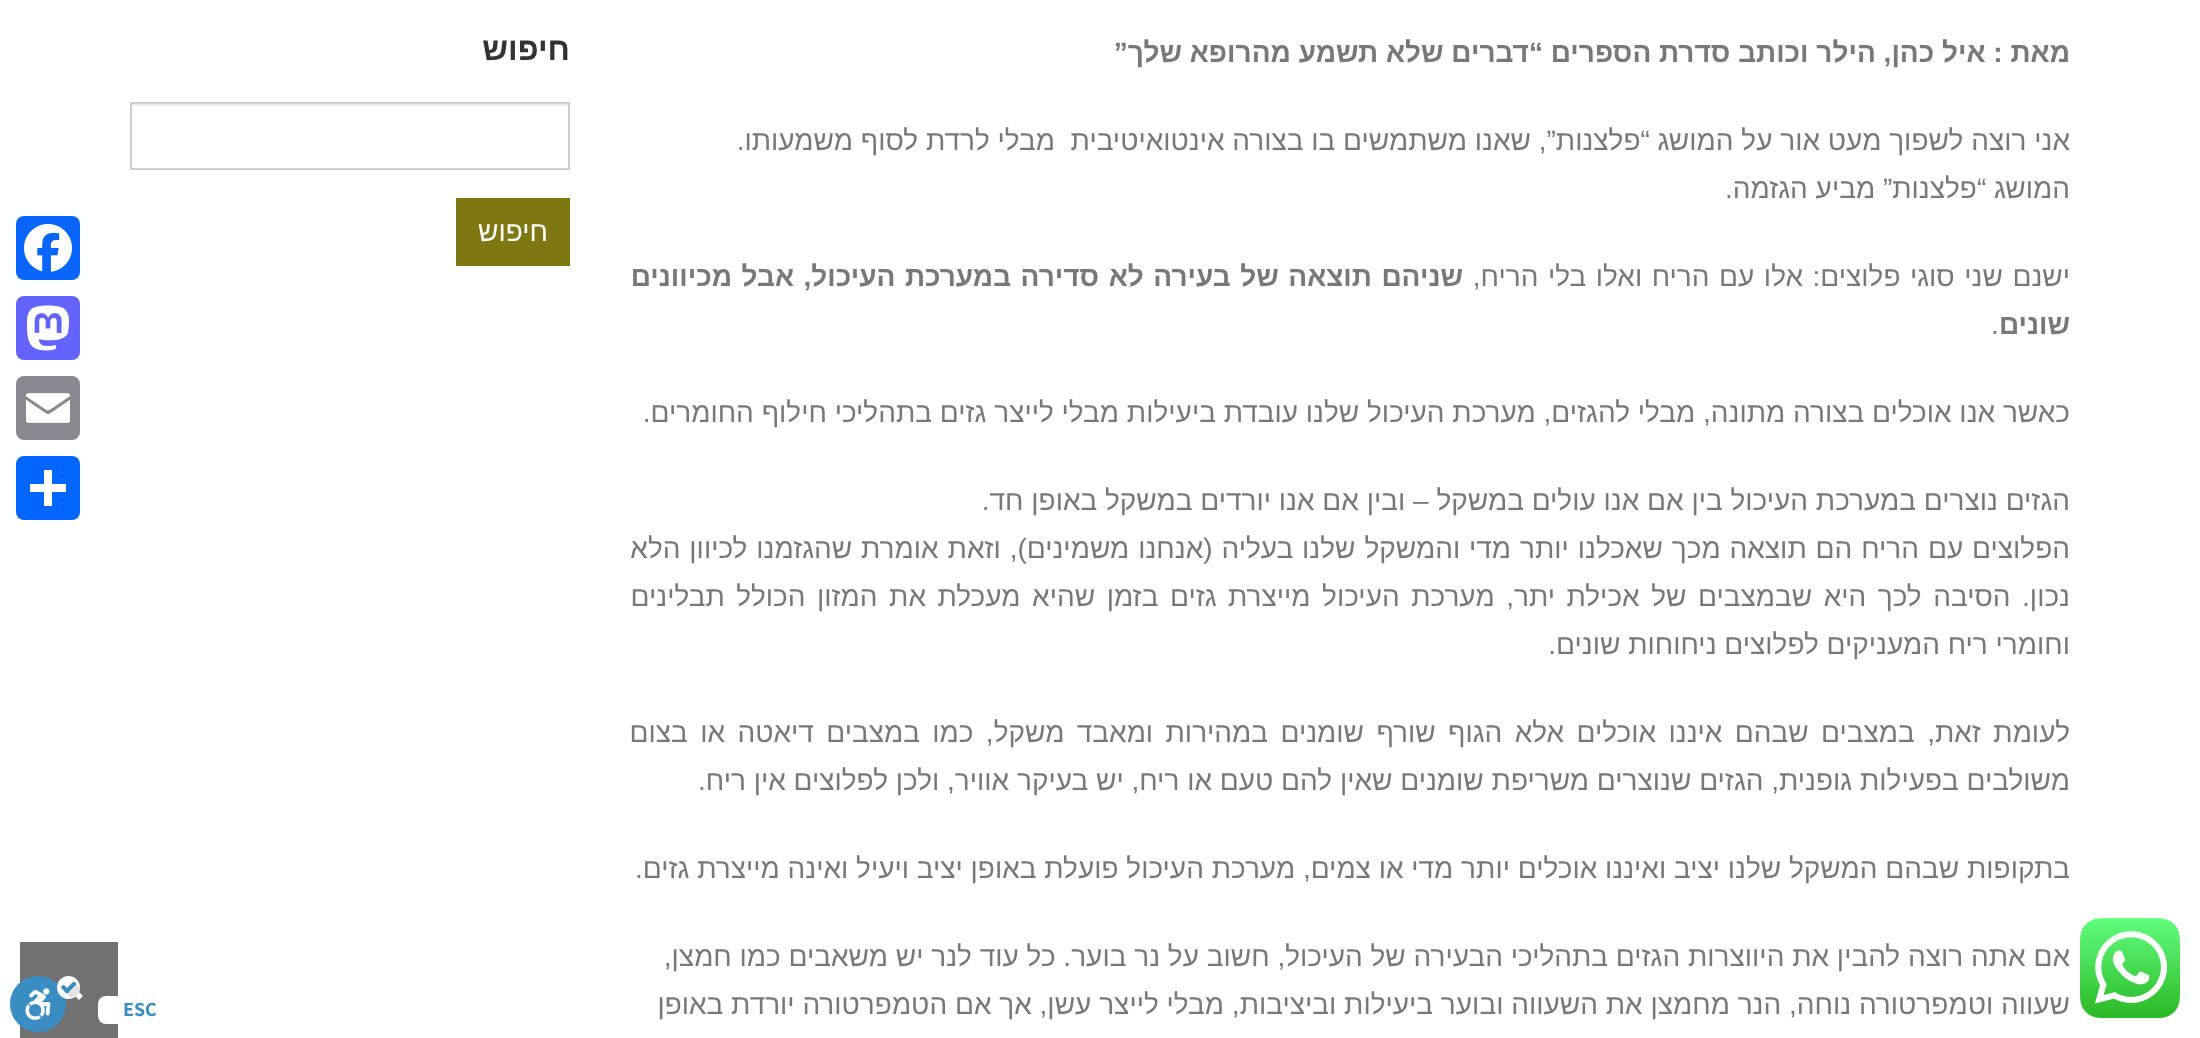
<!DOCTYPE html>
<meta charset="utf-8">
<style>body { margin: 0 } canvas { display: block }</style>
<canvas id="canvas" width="2200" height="1038"></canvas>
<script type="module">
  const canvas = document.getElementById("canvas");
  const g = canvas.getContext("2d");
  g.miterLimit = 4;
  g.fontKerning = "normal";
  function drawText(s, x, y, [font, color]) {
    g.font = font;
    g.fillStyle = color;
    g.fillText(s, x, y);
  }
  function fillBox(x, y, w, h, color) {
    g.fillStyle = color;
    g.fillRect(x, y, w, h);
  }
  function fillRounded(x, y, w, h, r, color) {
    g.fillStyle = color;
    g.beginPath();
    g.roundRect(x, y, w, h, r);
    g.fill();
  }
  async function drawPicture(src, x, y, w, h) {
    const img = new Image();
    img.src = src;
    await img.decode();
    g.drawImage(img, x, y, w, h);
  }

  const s1 = ["bold 28px Liberation Sans", "#787878"];
  const s2 = ["28px Liberation Sans", "#787878"];
  const s3 = ["bold 32px Liberation Sans", "#333333"];
  const s4 = ["28px Liberation Sans", "#FFFFFF"];
  const s5 = ["bold 20px Assistant", "#3A8DC2"];

  fillBox(0, 0, 2200, 1038, "#FFFFFF");
  g.direction = "rtl";
  drawText("מאת : איל כהן, הילר וכותב סדרת הספרים “דברים שלא תשמע מהרופא שלך”", 2070, 62, s1);
  drawText("אני רוצה לשפוך מעט אור על המושג “פלצנות”, שאנו משתמשים בו בצורה אינטואיטיבית  מבלי לרדת לסוף משמעותו.", 2070, 150, s2);
  drawText("המושג “פלצנות” מביע הגזמה.", 2070, 198, s2);
  g.wordSpacing = "1.75px";
  drawText("ישנם שני סוגי פלוצים: אלו עם הריח ואלו בלי הריח,", 2070, 286, s2);
  drawText("שניהם תוצאה של בעירה לא סדירה במערכת העיכול, אבל מכיוונים", 1463, 286, s1);
  g.wordSpacing = "0px";
  drawText("שונים", 2070, 334, s1);
  g.direction = "ltr";
  drawText(".", 1991, 334, s2);
  g.direction = "rtl";
  drawText("כאשר אנו אוכלים בצורה מתונה, מבלי להגזים, מערכת העיכול שלנו עובדת ביעילות מבלי לייצר גזים בתהליכי חילוף החומרים.", 2070, 422, s2);
  drawText("הגזים נוצרים במערכת העיכול בין אם אנו עולים במשקל – ובין אם אנו יורדים במשקל באופן חד.", 2070, 510, s2);
  g.wordSpacing = "1.1px";
  drawText("הפלוצים עם הריח הם תוצאה מכך שאכלנו יותר מדי והמשקל שלנו בעליה (אנחנו משמינים), וזאת אומרת שהגזמנו לכיוון הלא", 2070, 558, s2);
  g.wordSpacing = "3.75px";
  drawText("נכון. הסיבה לכך היא שבמצבים של אכילת יתר, מערכת העיכול מייצרת גזים בזמן שהיא מעכלת את המזון הכולל תבלינים", 2070, 606, s2);
  g.wordSpacing = "0px";
  drawText("וחומרי ריח המעניקים לפלוצים ניחוחות שונים.", 2070, 654, s2);
  g.wordSpacing = "4.6px";
  drawText("לעומת זאת, במצבים שבהם איננו אוכלים אלא הגוף שורף שומנים במהירות ומאבד משקל, כמו במצבים דיאטה או בצום", 2070, 742, s2);
  g.wordSpacing = "0px";
  drawText("משולבים בפעילות גופנית, הגזים שנוצרים משריפת שומנים שאין להם טעם או ריח, יש בעיקר אוויר, ולכן לפלוצים אין ריח.", 2070, 790, s2);
  drawText("בתקופות שבהם המשקל שלנו יציב ואיננו אוכלים יותר מדי או צמים, מערכת העיכול פועלת באופן יציב ויעיל ואינה מייצרת גזים.", 2070, 878, s2);
  drawText("אם אתה רוצה להבין את היווצרות הגזים בתהליכי הבעירה של העיכול, חשוב על נר בוער. כל עוד לנר יש משאבים כמו חמצן,", 2070, 966, s2);
  drawText("שעווה וטמפרטורה נוחה, הנר מחמצן את השעווה ובוער ביעילות וביציבות, מבלי לייצר עשן, אך אם הטמפרטורה יורדת באופן", 2070, 1014, s2);
  drawText("חיפוש", 570, 60, s3);
  fillBox(132, 104, 436, 2, "#ECECEC");
  g.strokeStyle = "#CDCDCD";
  g.lineWidth = 2;
  g.strokeRect(131, 103, 438, 66);
  fillBox(456, 198, 114, 68, "#7F7712");
  drawText("חיפוש", 548, 241, s4);
  fillRounded(16, 216, 64, 64, 8, "#0866FF");
  await drawPicture("pic1.png", 24, 224, 48, 48);
  fillRounded(16, 296, 64, 64, 8, "#6364FF");
  await drawPicture("pic2.png", 27, 305, 42, 46);
  fillRounded(16, 376, 64, 64, 8, "#888990");
  await drawPicture("pic3.png", 26, 393, 44, 30);
  fillRounded(16, 456, 64, 64, 8, "#0166FF");
  fillBox(44, 470, 8, 36, "#FFFFFF");
  fillBox(30, 484, 36, 8, "#FFFFFF");
  await drawPicture("pic4.png", 2080, 918, 100, 100);
  fillBox(20, 942, 98, 96, "#717171");
  fillRounded(98, 996, 84, 28, 8, "#FFFFFF");
  g.direction = "ltr";
  drawText("ESC", 123, 1016, s5);
  await drawPicture("pic6.png", 75, 992, 8, 8);
  await drawPicture("pic5.png", 10, 976, 71, 56);
</script>
